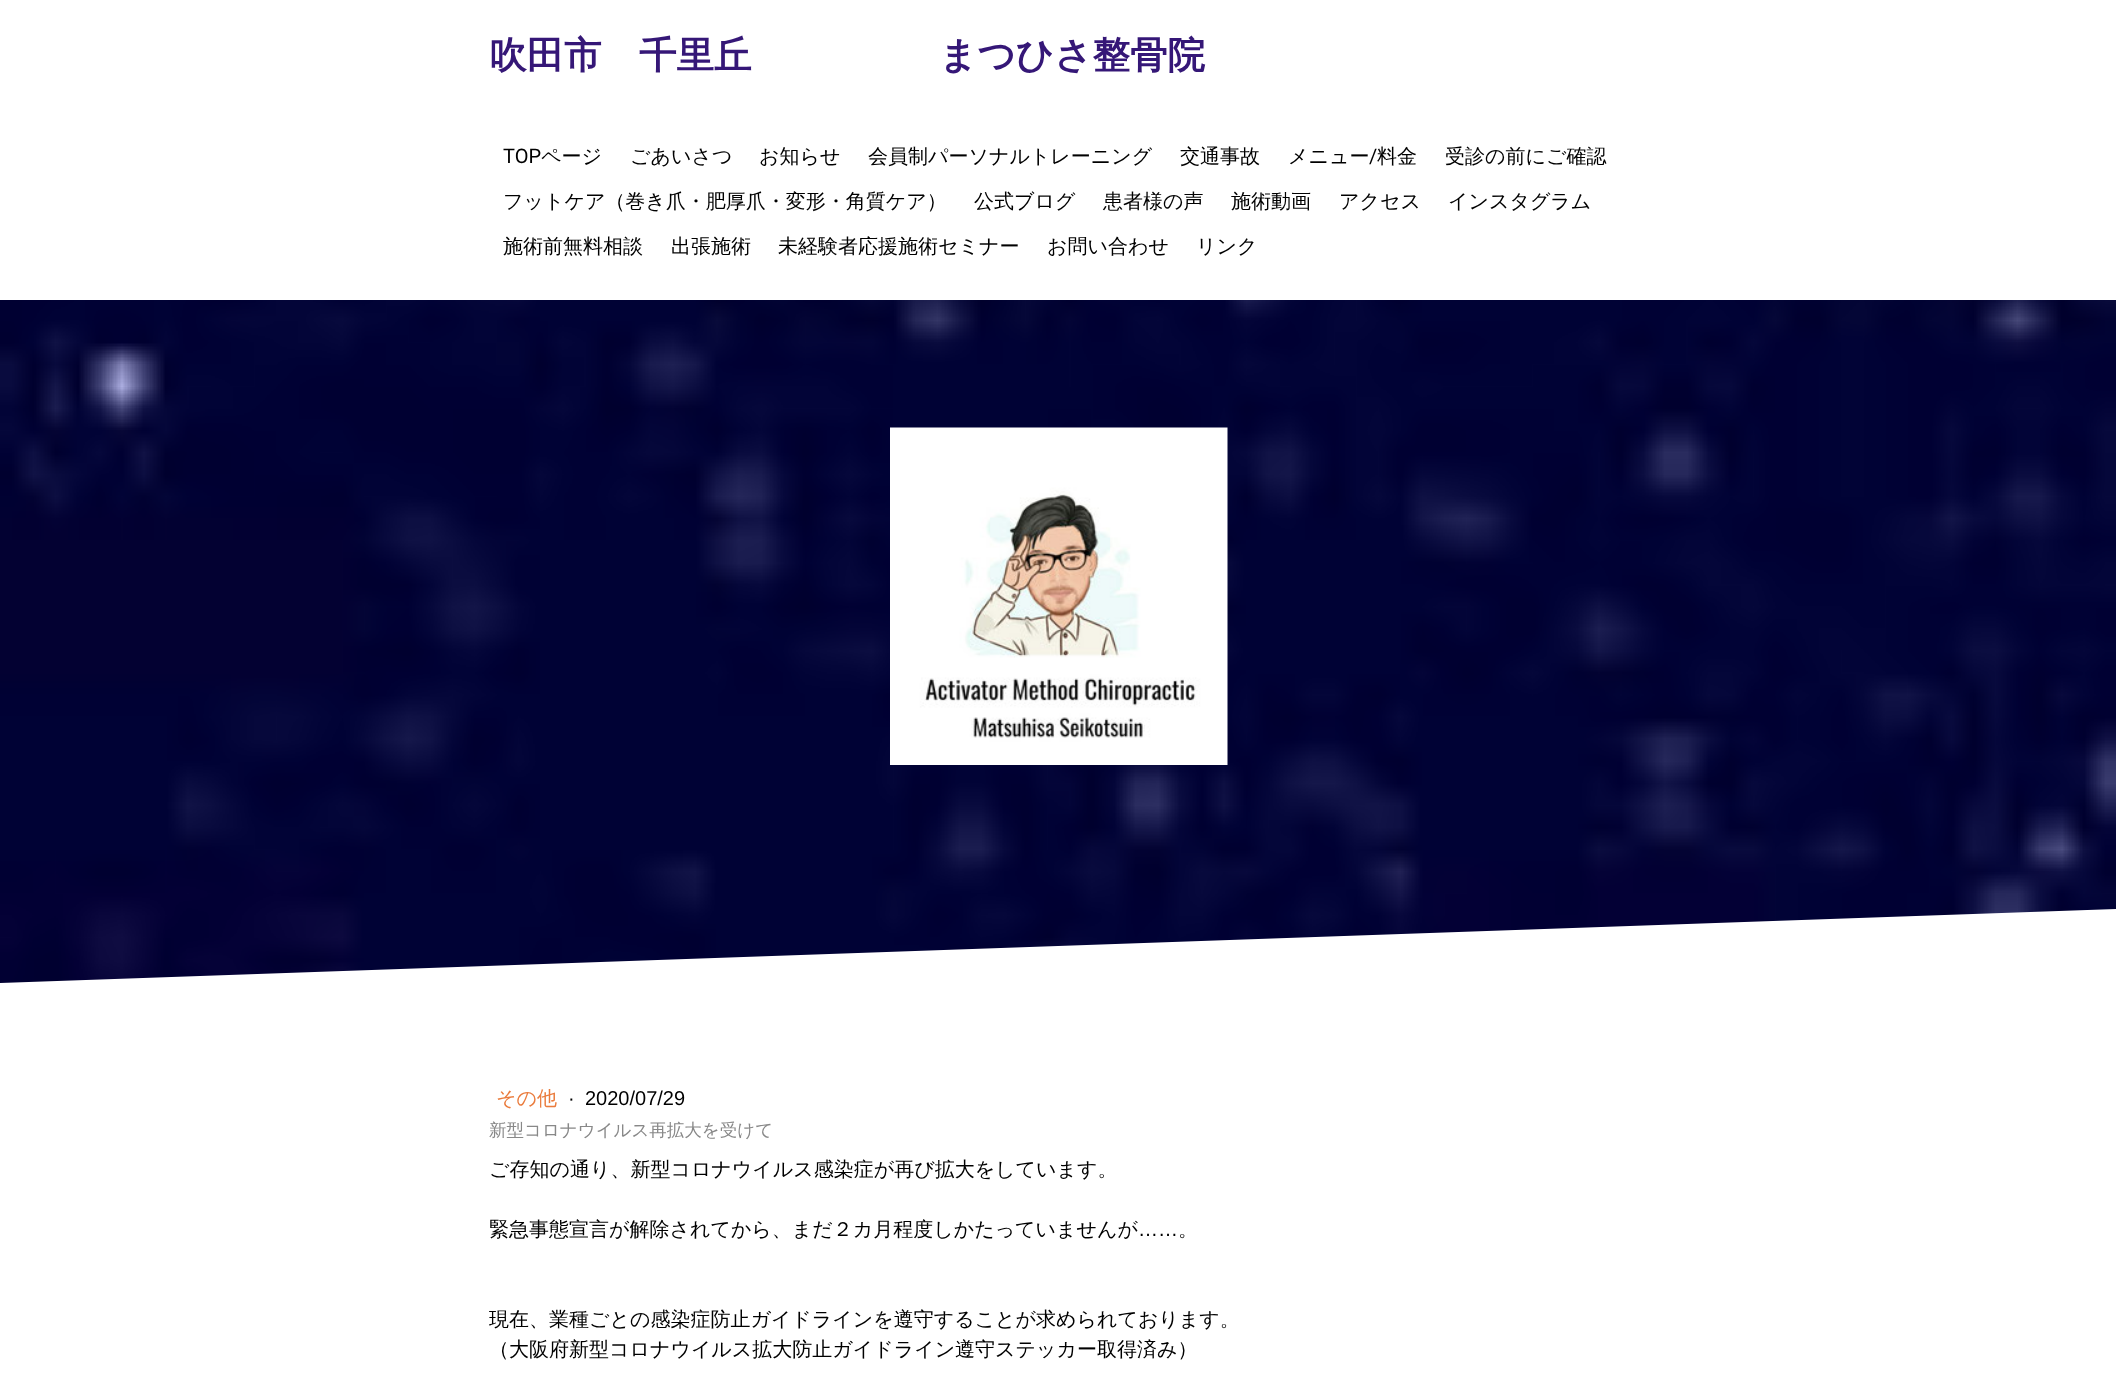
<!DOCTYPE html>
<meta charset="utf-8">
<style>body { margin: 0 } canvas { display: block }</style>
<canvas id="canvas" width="2116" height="1375"></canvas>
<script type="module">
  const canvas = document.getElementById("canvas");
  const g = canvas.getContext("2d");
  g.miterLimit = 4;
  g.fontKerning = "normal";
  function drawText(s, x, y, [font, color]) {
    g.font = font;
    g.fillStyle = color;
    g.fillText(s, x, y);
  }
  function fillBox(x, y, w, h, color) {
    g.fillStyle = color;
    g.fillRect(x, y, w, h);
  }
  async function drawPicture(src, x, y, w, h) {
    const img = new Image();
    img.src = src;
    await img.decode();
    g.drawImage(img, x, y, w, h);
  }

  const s1 = ["bold 37.5px WenQuanYi Zen Hei", "#351777"];
  const s2 = ["20px Roboto", "#000000"];
  const s3 = ["500 20px WenQuanYi Zen Hei", "#000000"];
  const s4 = ["500 20px WenQuanYi Zen Hei", "#EA7B3C"];
  const s5 = ["20px Liberation Sans", "#000000"];
  const s6 = ["500 17.5px WenQuanYi Zen Hei", "#888888"];

  fillBox(0, 0, 2116, 1375, "#FFFFFF");
  drawText("吹田市　千里丘　　　　　まつひさ整骨院", 489, 68, s1);
  drawText("TOP", 503, 163, s2);
  drawText("ページ", 541, 163, s3);
  drawText("ごあいさつ", 630, 163, s3);
  drawText("お知らせ", 759, 163, s3);
  drawText("会員制パーソナルトレーニング", 868, 163, s3);
  drawText("交通事故", 1180, 163, s3);
  drawText("メニュー", 1288, 163, s3);
  drawText("/", 1369, 163, s2);
  drawText("料金", 1377, 163, s3);
  drawText("受診の前にご確認", 1445, 163, s3);
  drawText("フットケア（巻き爪・肥厚爪・変形・角質ケア）", 503, 208, s3);
  drawText("公式ブログ", 974, 208, s3);
  drawText("患者様の声", 1103, 208, s3);
  drawText("施術動画", 1231, 208, s3);
  drawText("アクセス", 1339, 208, s3);
  drawText("インスタグラム", 1448, 208, s3);
  drawText("施術前無料相談", 503, 253, s3);
  drawText("出張施術", 671, 253, s3);
  drawText("未経験者応援施術セミナー", 778, 253, s3);
  drawText("お問い合わせ", 1047, 253, s3);
  drawText("リンク", 1196, 253, s3);
  await drawPicture("pic2.png", 0, 300, 2116, 683);
  await drawPicture("pic1.png", 890, 427, 338, 338);
  g.fillStyle = "#FFFFFF";
  g.beginPath();
  g.moveTo(0, 983);
  g.lineTo(2116, 909);
  g.lineTo(2116, 1034);
  g.lineTo(0, 1108);
  g.closePath();
  g.fill();
  drawText("その他", 496, 1105, s4);
  drawText("·", 568, 1105, s5);
  drawText("2020/07/29", 585, 1105, s5);
  drawText("新型コロナウイルス再拡大を受けて", 489, 1136, s6);
  drawText("ご存知の通り、新型コロナウイルス感染症が再び拡大をしています。", 489, 1176, s3);
  drawText("緊急事態宣言が解除されてから、まだ２カ月程度しかたっていませんが", 489, 1236, s3);
  drawText("……", 1138, 1236, s5);
  drawText("。", 1178, 1236, s3);
  drawText("現在、業種ごとの感染症防止ガイドラインを遵守することが求められております。", 489, 1326, s3);
  drawText("（大阪府新型コロナウイルス拡大防止ガイドライン遵守ステッカー取得済み）", 489, 1356, s3);
</script>
